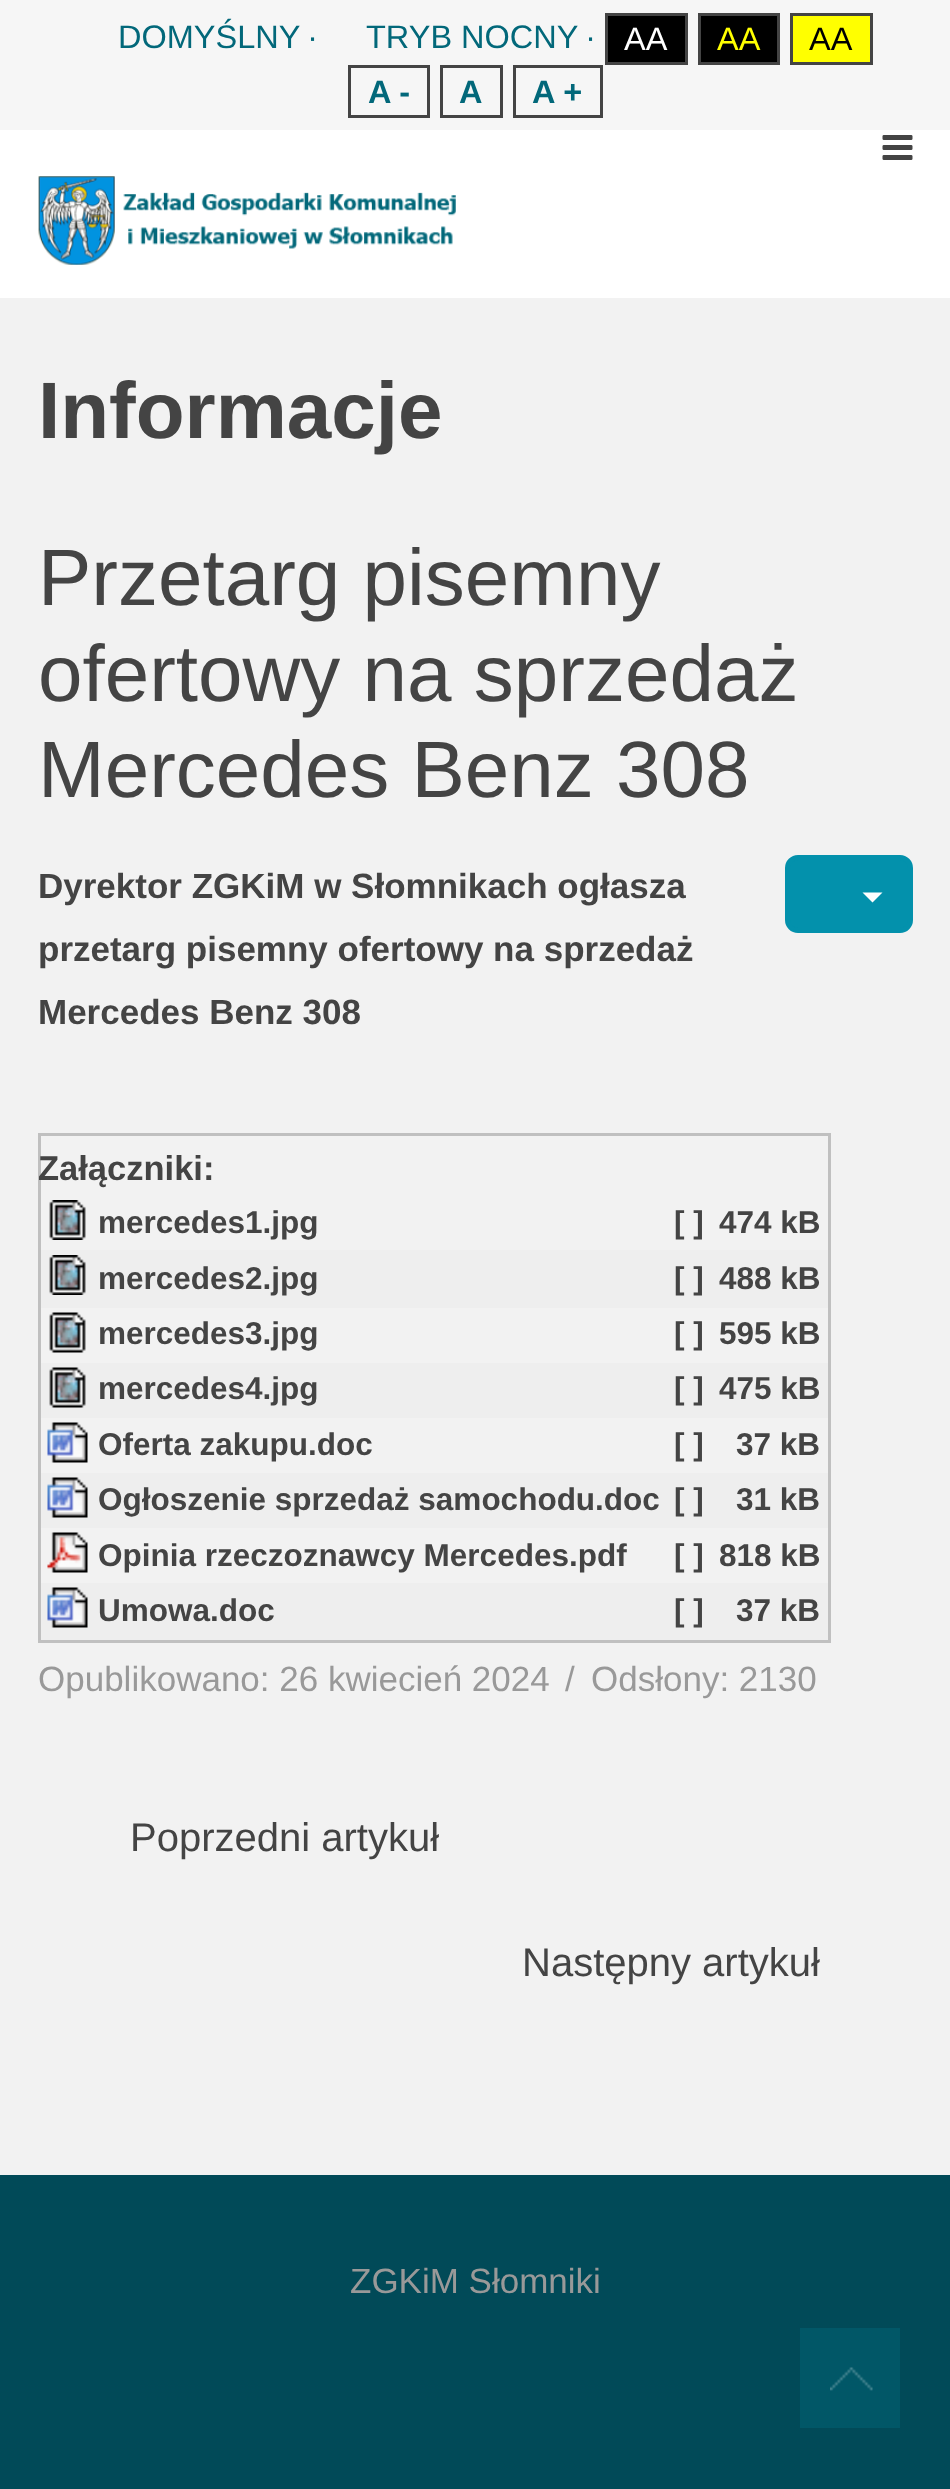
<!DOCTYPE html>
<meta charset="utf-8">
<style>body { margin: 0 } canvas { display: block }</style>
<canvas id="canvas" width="950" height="2489"></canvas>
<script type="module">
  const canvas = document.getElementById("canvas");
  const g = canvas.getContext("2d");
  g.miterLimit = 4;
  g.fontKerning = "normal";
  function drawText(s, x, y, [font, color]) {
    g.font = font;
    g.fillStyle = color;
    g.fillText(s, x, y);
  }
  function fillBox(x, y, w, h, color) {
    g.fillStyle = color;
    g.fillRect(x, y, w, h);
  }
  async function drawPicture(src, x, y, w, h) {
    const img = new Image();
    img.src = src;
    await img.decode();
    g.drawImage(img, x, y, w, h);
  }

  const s1 = ["32.5px Liberation Sans", "#02687A"];
  const s2 = ["32.5px Liberation Sans", "#FFFFFF"];
  const s3 = ["32.5px Liberation Sans", "#FFFF00"];
  const s4 = ["32.5px Liberation Sans", "#000000"];
  const s5 = ["bold 32.5px Liberation Sans", "#02687A"];
  const s6 = ["bold 80px Liberation Sans", "#444444"];
  const s7 = ["80px Liberation Sans", "#444444"];
  const s8 = ["bold 35px Liberation Sans", "#444444"];
  const s9 = ["bold 34.5px Liberation Sans", "#444444"];
  const s10 = ["bold 31.5px Liberation Sans", "#444444"];
  const s11 = ["35px Liberation Sans", "#999999"];
  const s12 = ["40px Liberation Sans", "#444444"];

  fillBox(0, 0, 950, 2489, "#014A58");
  fillBox(0, 298, 950, 1877, "#F2F2F2");
  fillBox(0, 0, 950, 130, "#F6F6F6");
  drawText("DOMYŚLNY", 118, 48, s1);
  drawText("∙", 308, 48, s1);
  drawText("TRYB NOCNY", 366, 48, s1);
  drawText("∙", 586, 48, s1);
  g.fillStyle = "#000000";
  g.beginPath();
  g.rect(606.5, 14.5, 80, 49);
  g.fill();
  g.strokeStyle = "#444444";
  g.lineWidth = 3;
  g.stroke();
  drawText("AA", 624, 50, s2);
  g.fillStyle = "#000000";
  g.beginPath();
  g.rect(699.5, 14.5, 79, 49);
  g.fill();
  g.stroke();
  drawText("AA", 717, 50, s3);
  g.beginPath();
  g.rect(791.5, 14.5, 80, 49);
  g.fill();
  g.stroke();
  drawText("AA", 809, 50, s4);
  g.strokeRect(349.5, 66.5, 79, 50);
  drawText("A -", 368, 103, s5);
  g.strokeRect(441.5, 66.5, 60, 50);
  drawText("A", 459, 103, s5);
  g.strokeRect(514.5, 66.5, 87, 50);
  drawText("A +", 532, 103, s5);
  fillBox(0, 130, 950, 168, "#FFFFFF");
  await drawPicture("pic1.png", 882, 135, 31, 25);
  await drawPicture("pic2.png", 38, 176, 418, 89);
  drawText("Informacje", 38, 438, s6);
  drawText("Przetarg pisemny", 38, 605, s7);
  drawText("ofertowy na sprzedaż", 38, 701, s7);
  drawText("Mercedes Benz 308", 38, 797, s7);
  drawText("Dyrektor ZGKiM w Słomnikach ogłasza", 38, 898, s8);
  drawText("przetarg pisemny ofertowy na sprzedaż", 38, 961, s8);
  drawText("Mercedes Benz 308", 38, 1024, s8);
  fillBox(38, 1133, 792, 3, "#C0C0C0");
  fillBox(828, 1133, 3, 510, "#C0C0C0");
  fillBox(38, 1640, 792, 3, "#C0C0C0");
  fillBox(38, 1133, 3, 510, "#C0C0C0");
  drawText("Załączniki:", 38, 1180, s9);
  await drawPicture("pic3.png", 49, 1200, 37, 40);
  drawText("mercedes1.jpg", 98, 1233, s10);
  drawText("[ ]", 674, 1233, s10);
  drawText("474 kB", 719, 1233, s10);
  fillBox(41, 1250, 787, 58, "#EEEEEE");
  await drawPicture("pic4.png", 49, 1255, 37, 40);
  drawText("mercedes2.jpg", 98, 1289, s10);
  drawText("[ ]", 674, 1289, s10);
  drawText("488 kB", 719, 1289, s10);
  await drawPicture("pic5.png", 49, 1312, 37, 41);
  drawText("mercedes3.jpg", 98, 1344, s10);
  drawText("[ ]", 674, 1344, s10);
  drawText("595 kB", 719, 1344, s10);
  fillBox(41, 1363, 787, 55, "#EEEEEE");
  await drawPicture("pic6.png", 49, 1367, 37, 41);
  drawText("mercedes4.jpg", 98, 1399, s10);
  drawText("[ ]", 674, 1399, s10);
  drawText("475 kB", 719, 1399, s10);
  await drawPicture("pic7.png", 47, 1422, 41, 41);
  drawText("Oferta zakupu.doc", 98, 1455, s10);
  drawText("[ ]", 674, 1455, s10);
  drawText("37 kB", 736, 1455, s10);
  fillBox(41, 1473, 787, 55, "#EEEEEE");
  await drawPicture("pic8.png", 47, 1477, 41, 41);
  drawText("Ogłoszenie sprzedaż samochodu.doc", 98, 1510, s10);
  drawText("[ ]", 674, 1510, s10);
  drawText("31 kB", 736, 1510, s10);
  await drawPicture("pic9.png", 47, 1532, 41, 41);
  drawText("Opinia rzeczoznawcy Mercedes.pdf", 98, 1566, s10);
  drawText("[ ]", 674, 1566, s10);
  drawText("818 kB", 719, 1566, s10);
  fillBox(41, 1583, 787, 57, "#EEEEEE");
  await drawPicture("pic8.png", 47, 1587, 41, 41);
  drawText("Umowa.doc", 98, 1621, s10);
  drawText("[ ]", 674, 1621, s10);
  drawText("37 kB", 736, 1621, s10);
  g.fillStyle = "#0391AC";
  g.beginPath();
  g.roundRect(787.5, 857.5, 123, 73, 10.5);
  g.fill();
  g.strokeStyle = "#0391AC";
  g.lineWidth = 5;
  g.stroke();
  g.fillStyle = "#FFFFFF";
  g.beginPath();
  g.moveTo(862.5, 892.5);
  g.lineTo(882.5, 892.5);
  g.lineTo(872.5, 902.5);
  g.closePath();
  g.fill();
  drawText("Opublikowano: 26 kwiecień 2024", 38, 1691, s11);
  drawText("/", 565, 1691, s11);
  drawText("Odsłony: 2130", 591, 1691, s11);
  drawText("Poprzedni artykuł", 130, 1851, s12);
  drawText("Następny artykuł", 522, 1976, s12);
  drawText("ZGKiM Słomniki", 350, 2293, s11);
  fillBox(800, 2328, 100, 100, "#015767");
  await drawPicture("pic10.png", 830, 2367, 43, 24);
</script>
